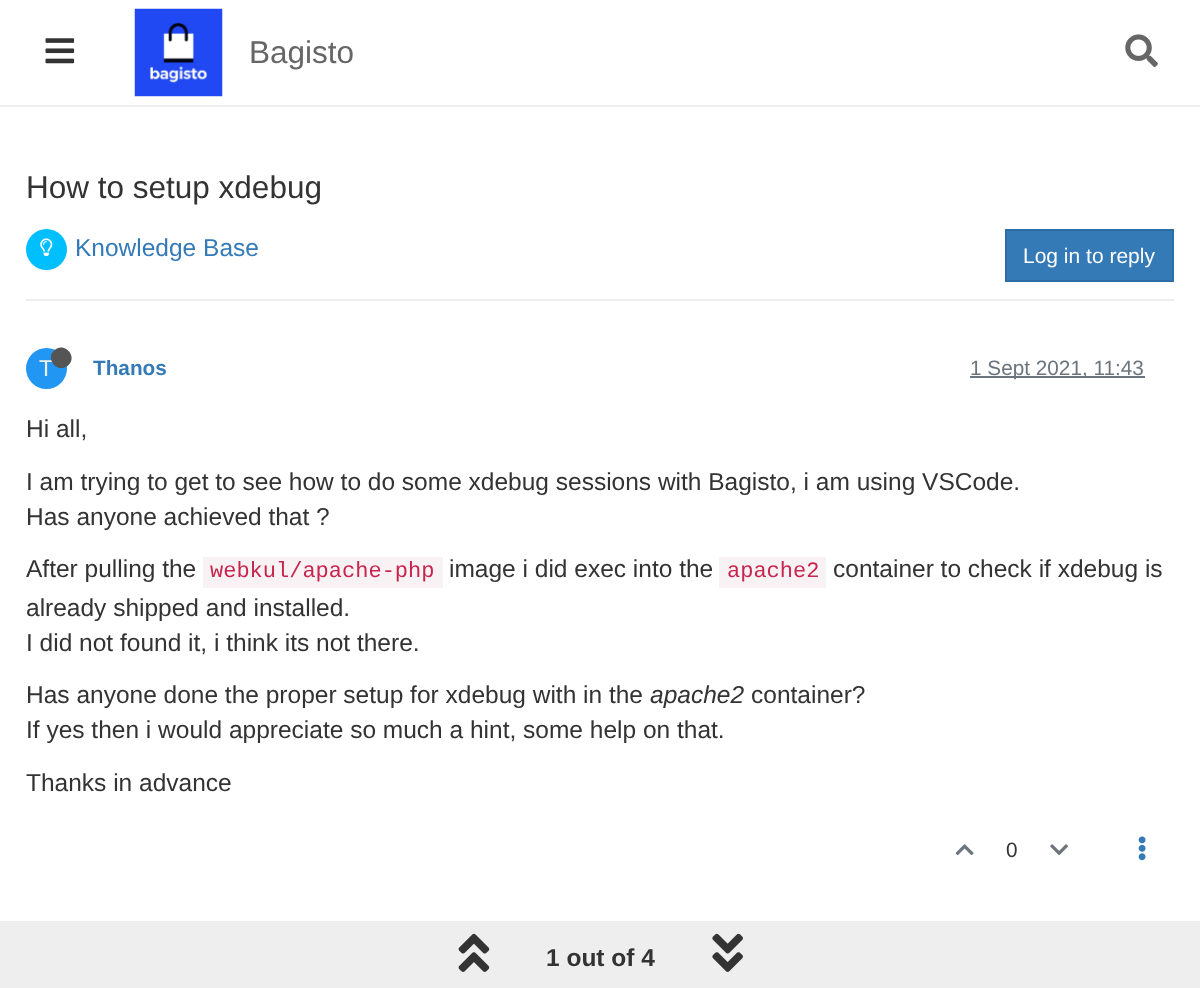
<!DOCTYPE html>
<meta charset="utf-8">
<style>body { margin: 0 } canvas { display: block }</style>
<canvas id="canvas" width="1200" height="988"></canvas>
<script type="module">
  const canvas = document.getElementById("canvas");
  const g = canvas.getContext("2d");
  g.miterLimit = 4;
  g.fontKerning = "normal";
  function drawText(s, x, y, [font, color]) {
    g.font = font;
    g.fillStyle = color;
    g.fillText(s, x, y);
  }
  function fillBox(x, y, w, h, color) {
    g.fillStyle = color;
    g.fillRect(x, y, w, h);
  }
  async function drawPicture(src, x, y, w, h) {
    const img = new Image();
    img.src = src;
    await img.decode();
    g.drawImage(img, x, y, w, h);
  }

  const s1 = ["31.5px Liberation Sans", "#666666"];
  const s2 = ["31.5px Liberation Sans", "#333333"];
  const s3 = ["24.5px Liberation Sans", "#337AB7"];
  const s4 = ["21px Liberation Sans", "#FFFFFF"];
  const s5 = ["23px Liberation Sans", "#EEEEEE"];
  const s6 = ["bold 20.75px Liberation Sans", "#337AB7"];
  const s7 = ["20.75px Liberation Sans", "#6C757D"];
  const s8 = ["24.5px Liberation Sans", "#333333"];
  const s9 = ["22px Liberation Mono", "#C7254E"];
  const s10 = ["italic 24.5px Liberation Sans", "#333333"];
  const s11 = ["20.75px Liberation Sans", "#333333"];
  const s12 = ["bold 24.5px Liberation Sans", "#333333"];

  fillBox(0, 0, 1200, 988, "#FFFFFF");
  fillBox(0, 105, 1200, 2, "#EEEEEE");
  await drawPicture("pic1.png", 45, 38, 30, 26);
  await drawPicture("pic2.png", 134, 8, 89, 89);
  drawText("Bagisto", 249, 63, s1);
  await drawPicture("pic3.png", 1125, 34, 33, 34);
  drawText("How to setup xdebug", 26, 198, s2);
  fillBox(26, 299, 1148, 2, "#EEEEEE");
  g.fillStyle = "#00BFFF";
  g.beginPath();
  g.arc(46.5, 249.5, 20.5, 0, Math.PI * 2);
  g.fill();
  await drawPicture("pic4.png", 40, 238, 13, 18);
  drawText("Knowledge Base", 75, 256, s3);
  g.beginPath();
  g.rect(1006, 230, 167, 51);
  g.fill();
  g.strokeStyle = "#2E6DA4";
  g.lineWidth = 2;
  g.stroke();
  drawText("Log in to reply", 1023, 263, s4);
  g.fillStyle = "#2196F3";
  g.beginPath();
  g.arc(46.5, 368.5, 20.5, 0, Math.PI * 2);
  g.fill();
  drawText("T", 39, 376, s5);
  g.fillStyle = "#555555";
  g.beginPath();
  g.moveTo(54, 350.5);
  g.bezierCurveTo(63.5, 341, 78, 355.5, 68.5, 365);
  g.bezierCurveTo(59, 374.5, 44.5, 360, 54, 350.5);
  g.closePath();
  g.fill();
  drawText("Thanos", 93, 375, s6);
  fillBox(970, 376, 175, 2, "#6C757D");
  drawText("1 Sept 2021, 11:43", 970, 375, s7);
  drawText("Hi all,", 26, 437, s8);
  drawText("I am trying to get to see how to do some xdebug sessions with Bagisto, i am using VSCode.", 26, 490, s8);
  drawText("Has anyone achieved that ?", 26, 525, s8);
  drawText("After pulling the", 26, 577, s8);
  fillBox(203, 557, 240, 31, "#F9F2F4");
  drawText("webkul/apache-php", 210, 577, s9);
  drawText("image i did exec into the", 449, 577, s8);
  fillBox(719, 557, 107, 31, "#F9F2F4");
  drawText("apache2", 727, 577, s9);
  drawText("container to check if xdebug is", 833, 577, s8);
  drawText("already shipped and installed.", 26, 616, s8);
  drawText("I did not found it, i think its not there.", 26, 651, s8);
  drawText("Has anyone done the proper setup for xdebug with in the", 26, 703, s8);
  drawText("apache2", 650, 703, s10);
  drawText("container?", 751, 703, s8);
  drawText("If yes then i would appreciate so much a hint, some help on that.", 26, 738, s8);
  drawText("Thanks in advance", 26, 791, s8);
  await drawPicture("pic5.png", 955, 844, 19, 12);
  drawText("0", 1006, 857, s11);
  await drawPicture("pic6.png", 1050, 844, 18, 12);
  await drawPicture("pic7.png", 1138, 836, 8, 25);
  fillBox(0, 921, 1200, 67, "#EEEEEE");
  await drawPicture("pic8.png", 458, 933, 32, 39);
  drawText("1 out of 4", 546, 966, s12);
  await drawPicture("pic9.png", 712, 933, 31, 39);
</script>
